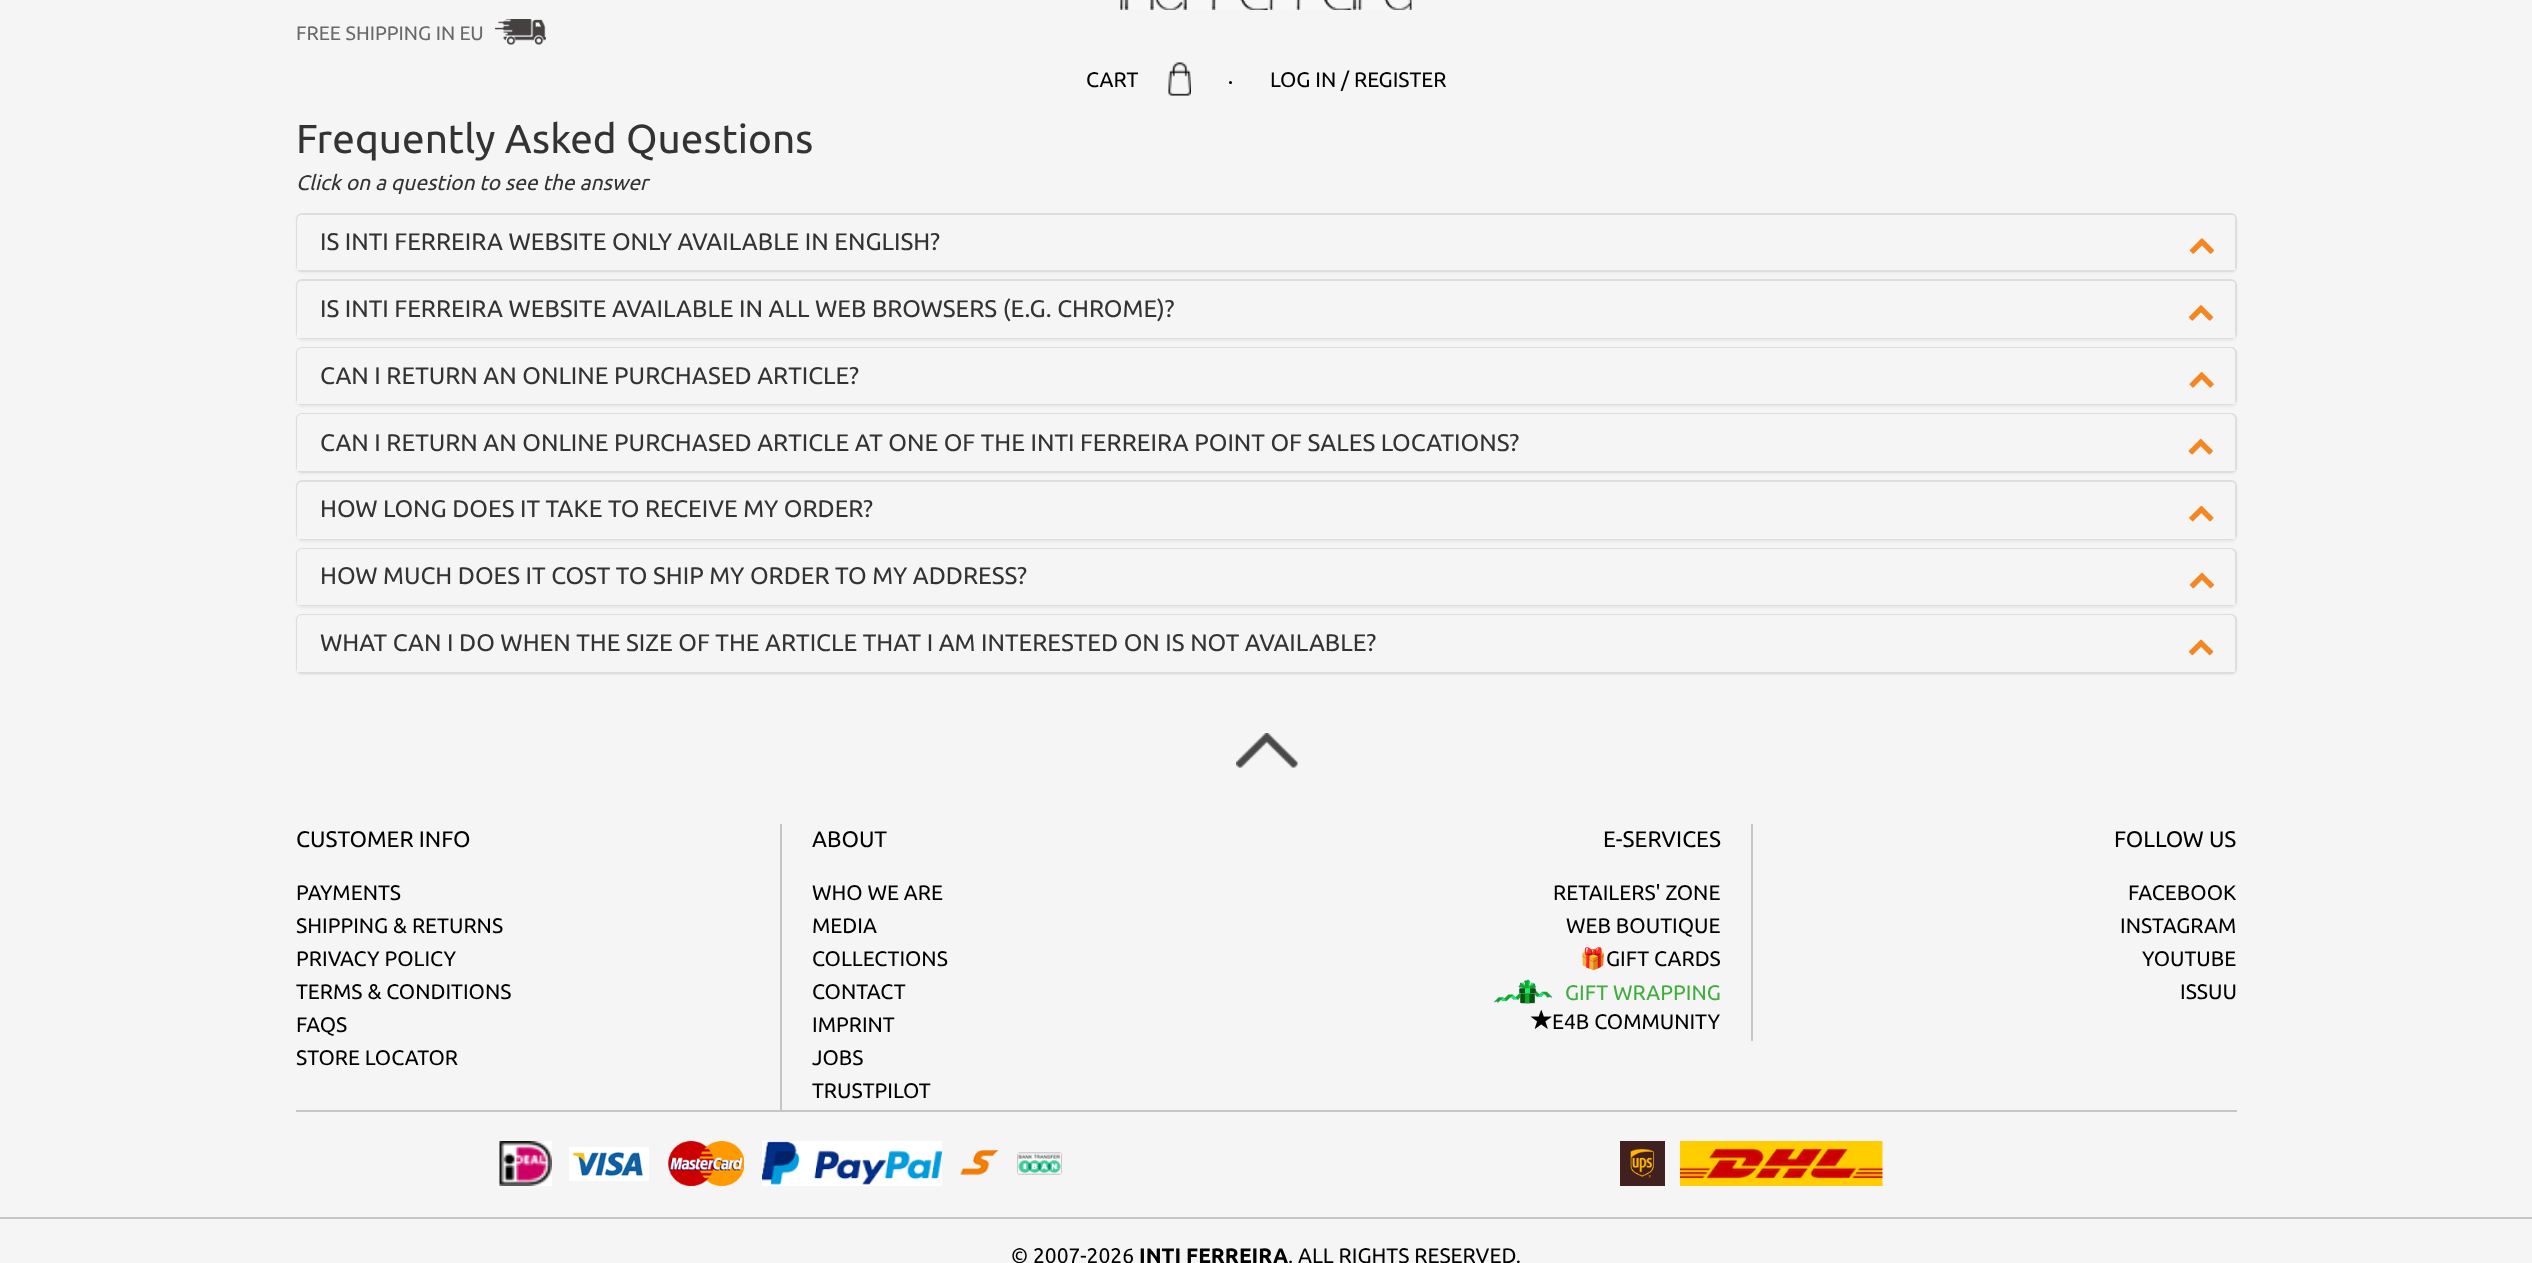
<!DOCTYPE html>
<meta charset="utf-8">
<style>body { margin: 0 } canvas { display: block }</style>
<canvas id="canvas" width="2532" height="1263"></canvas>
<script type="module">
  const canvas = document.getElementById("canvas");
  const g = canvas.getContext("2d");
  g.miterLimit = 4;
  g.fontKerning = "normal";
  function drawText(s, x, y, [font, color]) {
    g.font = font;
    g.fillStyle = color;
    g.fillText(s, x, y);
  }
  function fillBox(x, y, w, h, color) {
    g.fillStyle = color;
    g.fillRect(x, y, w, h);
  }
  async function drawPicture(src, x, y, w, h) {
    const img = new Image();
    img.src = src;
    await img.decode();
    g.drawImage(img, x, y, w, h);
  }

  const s1 = ["19.5px Ubuntu", "#696969"];
  const s2 = ["21px Ubuntu", "#000000"];
  const s3 = ["40.5px Ubuntu", "#333333"];
  const s4 = ["italic 21px Ubuntu", "#333333"];
  const s5 = ["24px Ubuntu", "#333333"];
  const s6 = ["22.5px Ubuntu", "#000000"];
  const s7 = ["21px Noto Color Emoji", "#000000"];
  const s8 = ["21px Ubuntu", "#40AE3F"];
  const s9 = ["bold 21px Ubuntu", "#000000"];

  fillBox(0, 0, 2532, 1263, "#F5F5F5");
  await drawPicture("pic1.png", 1120, 0, 292, 10);
  drawText("FREE SHIPPING IN EU", 296, 40, s1);
  await drawPicture("pic2.png", 495, 19, 51, 26);
  drawText("CART", 1086, 87, s2);
  await drawPicture("pic3.png", 1168, 62, 23, 34);
  g.beginPath();
  g.arc(1230.5, 82.5, 1.5, 0, Math.PI * 2);
  g.fill();
  drawText("LOG IN / REGISTER", 1270, 87, s2);
  drawText("Frequently Asked Questions", 296, 153, s3);
  drawText("Click on a question to see the answer", 296, 190, s4);
  g.fillStyle = "rgba(0, 0, 0, 0.05)";
  g.filter = "blur(1px)";
  g.beginPath();
  g.roundRect(296, 215, 1941, 58, 6);
  g.fill();
  g.filter = "none";
  g.fillStyle = "#FFFFFF";
  g.beginPath();
  g.roundRect(297, 214, 1939, 57, 5);
  g.fill();
  g.strokeStyle = "#DDDDDD";
  g.lineWidth = 2;
  g.stroke();
  g.fillStyle = "#F5F5F5";
  g.beginPath();
  g.roundRect(297, 215, 1938, 55, [5, 5, 0, 0]);
  g.fill();
  drawText("IS INTI FERREIRA WEBSITE ONLY AVAILABLE IN ENGLISH?", 320, 250, s5);
  await drawPicture("pic4.png", 2189, 238, 25, 16);
  g.fillStyle = "rgba(0, 0, 0, 0.05)";
  g.filter = "blur(1px)";
  g.beginPath();
  g.roundRect(296, 281, 1941, 60, 6);
  g.fill();
  g.filter = "none";
  g.fillStyle = "#FFFFFF";
  g.beginPath();
  g.roundRect(297, 280, 1939, 58, 5);
  g.fill();
  g.stroke();
  g.fillStyle = "#F5F5F5";
  g.beginPath();
  g.roundRect(297, 281, 1938, 57, [5, 5, 0, 0]);
  g.fill();
  drawText("IS INTI FERREIRA WEBSITE AVAILABLE IN ALL WEB BROWSERS (E.G. CHROME)?", 320, 317, s5);
  await drawPicture("pic5.png", 2188, 305, 26, 16);
  g.fillStyle = "rgba(0, 0, 0, 0.05)";
  g.filter = "blur(1px)";
  g.beginPath();
  g.roundRect(296, 348, 1941, 59, 6);
  g.fill();
  g.filter = "none";
  g.beginPath();
  g.roundRect(297, 348, 1939, 56, 5);
  g.stroke();
  g.fillStyle = "#F5F5F5";
  g.beginPath();
  g.roundRect(297, 348, 1938, 56, [5, 5, 0, 0]);
  g.fill();
  drawText("CAN I RETURN AN ONLINE PURCHASED ARTICLE?", 320, 384, s5);
  await drawPicture("pic6.png", 2189, 372, 25, 16);
  g.fillStyle = "rgba(0, 0, 0, 0.05)";
  g.filter = "blur(1px)";
  g.beginPath();
  g.roundRect(296, 414, 1941, 60, 6);
  g.fill();
  g.filter = "none";
  g.beginPath();
  g.roundRect(297, 414, 1939, 58, 5);
  g.stroke();
  g.fillStyle = "#F5F5F5";
  g.beginPath();
  g.roundRect(297, 414, 1938, 57, [5, 5, 0, 0]);
  g.fill();
  drawText("CAN I RETURN AN ONLINE PURCHASED ARTICLE AT ONE OF THE INTI FERREIRA POINT OF SALES LOCATIONS?", 320, 451, s5);
  await drawPicture("pic7.png", 2188, 438, 25, 17);
  g.fillStyle = "rgba(0, 0, 0, 0.05)";
  g.filter = "blur(1px)";
  g.beginPath();
  g.roundRect(296, 482, 1941, 60, 6);
  g.fill();
  g.filter = "none";
  g.fillStyle = "#FFFFFF";
  g.beginPath();
  g.roundRect(297, 481, 1939, 58, 5);
  g.fill();
  g.stroke();
  g.fillStyle = "#F5F5F5";
  g.beginPath();
  g.roundRect(297, 482, 1938, 57, [5, 5, 0, 0]);
  g.fill();
  drawText("HOW LONG DOES IT TAKE TO RECEIVE MY ORDER?", 320, 517, s5);
  await drawPicture("pic8.png", 2189, 505, 25, 17);
  g.fillStyle = "rgba(0, 0, 0, 0.05)";
  g.filter = "blur(1px)";
  g.beginPath();
  g.roundRect(296, 549, 1941, 59, 6);
  g.fill();
  g.filter = "none";
  g.beginPath();
  g.roundRect(297, 549, 1939, 56, 5);
  g.stroke();
  g.fillStyle = "#F5F5F5";
  g.beginPath();
  g.roundRect(297, 549, 1938, 56, [5, 5, 0, 0]);
  g.fill();
  drawText("HOW MUCH DOES IT COST TO SHIP MY ORDER TO MY ADDRESS?", 320, 584, s5);
  await drawPicture("pic9.png", 2189, 572, 26, 17);
  g.fillStyle = "rgba(0, 0, 0, 0.05)";
  g.filter = "blur(1px)";
  g.beginPath();
  g.roundRect(296, 615, 1941, 60, 6);
  g.fill();
  g.filter = "none";
  g.beginPath();
  g.roundRect(297, 615, 1939, 58, 5);
  g.stroke();
  g.fillStyle = "#F5F5F5";
  g.beginPath();
  g.roundRect(297, 615, 1938, 57, [5, 5, 0, 0]);
  g.fill();
  drawText("WHAT CAN I DO WHEN THE SIZE OF THE ARTICLE THAT I AM INTERESTED ON IS NOT AVAILABLE?", 320, 651, s5);
  await drawPicture("pic10.png", 2188, 639, 26, 17);
  await drawPicture("pic11.png", 1236, 733, 62, 35);
  drawText("CUSTOMER INFO", 296, 847, s6);
  drawText("PAYMENTS", 296, 900, s2);
  drawText("SHIPPING & RETURNS", 296, 933, s2);
  drawText("PRIVACY POLICY", 296, 966, s2);
  drawText("TERMS & CONDITIONS", 296, 999, s2);
  drawText("FAQS", 296, 1032, s2);
  drawText("STORE LOCATOR", 296, 1065, s2);
  fillBox(780, 824, 2, 286, "#C6C6C6");
  drawText("ABOUT", 812, 847, s6);
  drawText("WHO WE ARE", 812, 900, s2);
  drawText("MEDIA", 812, 933, s2);
  drawText("COLLECTIONS", 812, 966, s2);
  drawText("CONTACT", 812, 999, s2);
  drawText("IMPRINT", 812, 1032, s2);
  drawText("JOBS", 812, 1065, s2);
  drawText("TRUSTPILOT", 812, 1098, s2);
  fillBox(1751, 824, 2, 217, "#C6C6C6");
  drawText("E-SERVICES", 1603, 847, s6);
  drawText("RETAILERS' ZONE", 1553, 900, s2);
  drawText("WEB BOUTIQUE", 1566, 933, s2);
  drawText("🎁", 1580, 966, s7);
  drawText("GIFT CARDS", 1606, 966, s2);
  await drawPicture("pic12.png", 1493, 979, 60, 25);
  drawText("GIFT WRAPPING", 1565, 1000, s8);
  await drawPicture("pic13.png", 1530, 1010, 22, 19);
  drawText("E4B COMMUNITY", 1552, 1029, s2);
  drawText("FOLLOW US", 2114, 847, s6);
  drawText("FACEBOOK", 2128, 900, s2);
  drawText("INSTAGRAM", 2120, 933, s2);
  drawText("YOUTUBE", 2142, 966, s2);
  drawText("ISSUU", 2180, 999, s2);
  fillBox(296, 1110, 1941, 2, "#C6C6C6");
  await drawPicture("pic14.png", 499, 1141, 53, 45);
  await drawPicture("pic15.png", 569, 1147, 80, 34);
  await drawPicture("pic16.png", 668, 1141, 76, 45);
  await drawPicture("pic17.png", 762, 1141, 180, 45);
  await drawPicture("pic18.png", 960, 1150, 39, 25);
  await drawPicture("pic19.png", 1017, 1152, 45, 23);
  await drawPicture("pic20.png", 1620, 1141, 45, 45);
  await drawPicture("pic21.png", 1680, 1141, 203, 45);
  fillBox(0, 1217, 2532, 2, "#C6C6C6");
  drawText("© 2007-2026", 1011, 1263, s2);
  drawText("INTI FERREIRA", 1139, 1263, s9);
  drawText(". ALL RIGHTS RESERVED.", 1288, 1263, s2);
</script>
